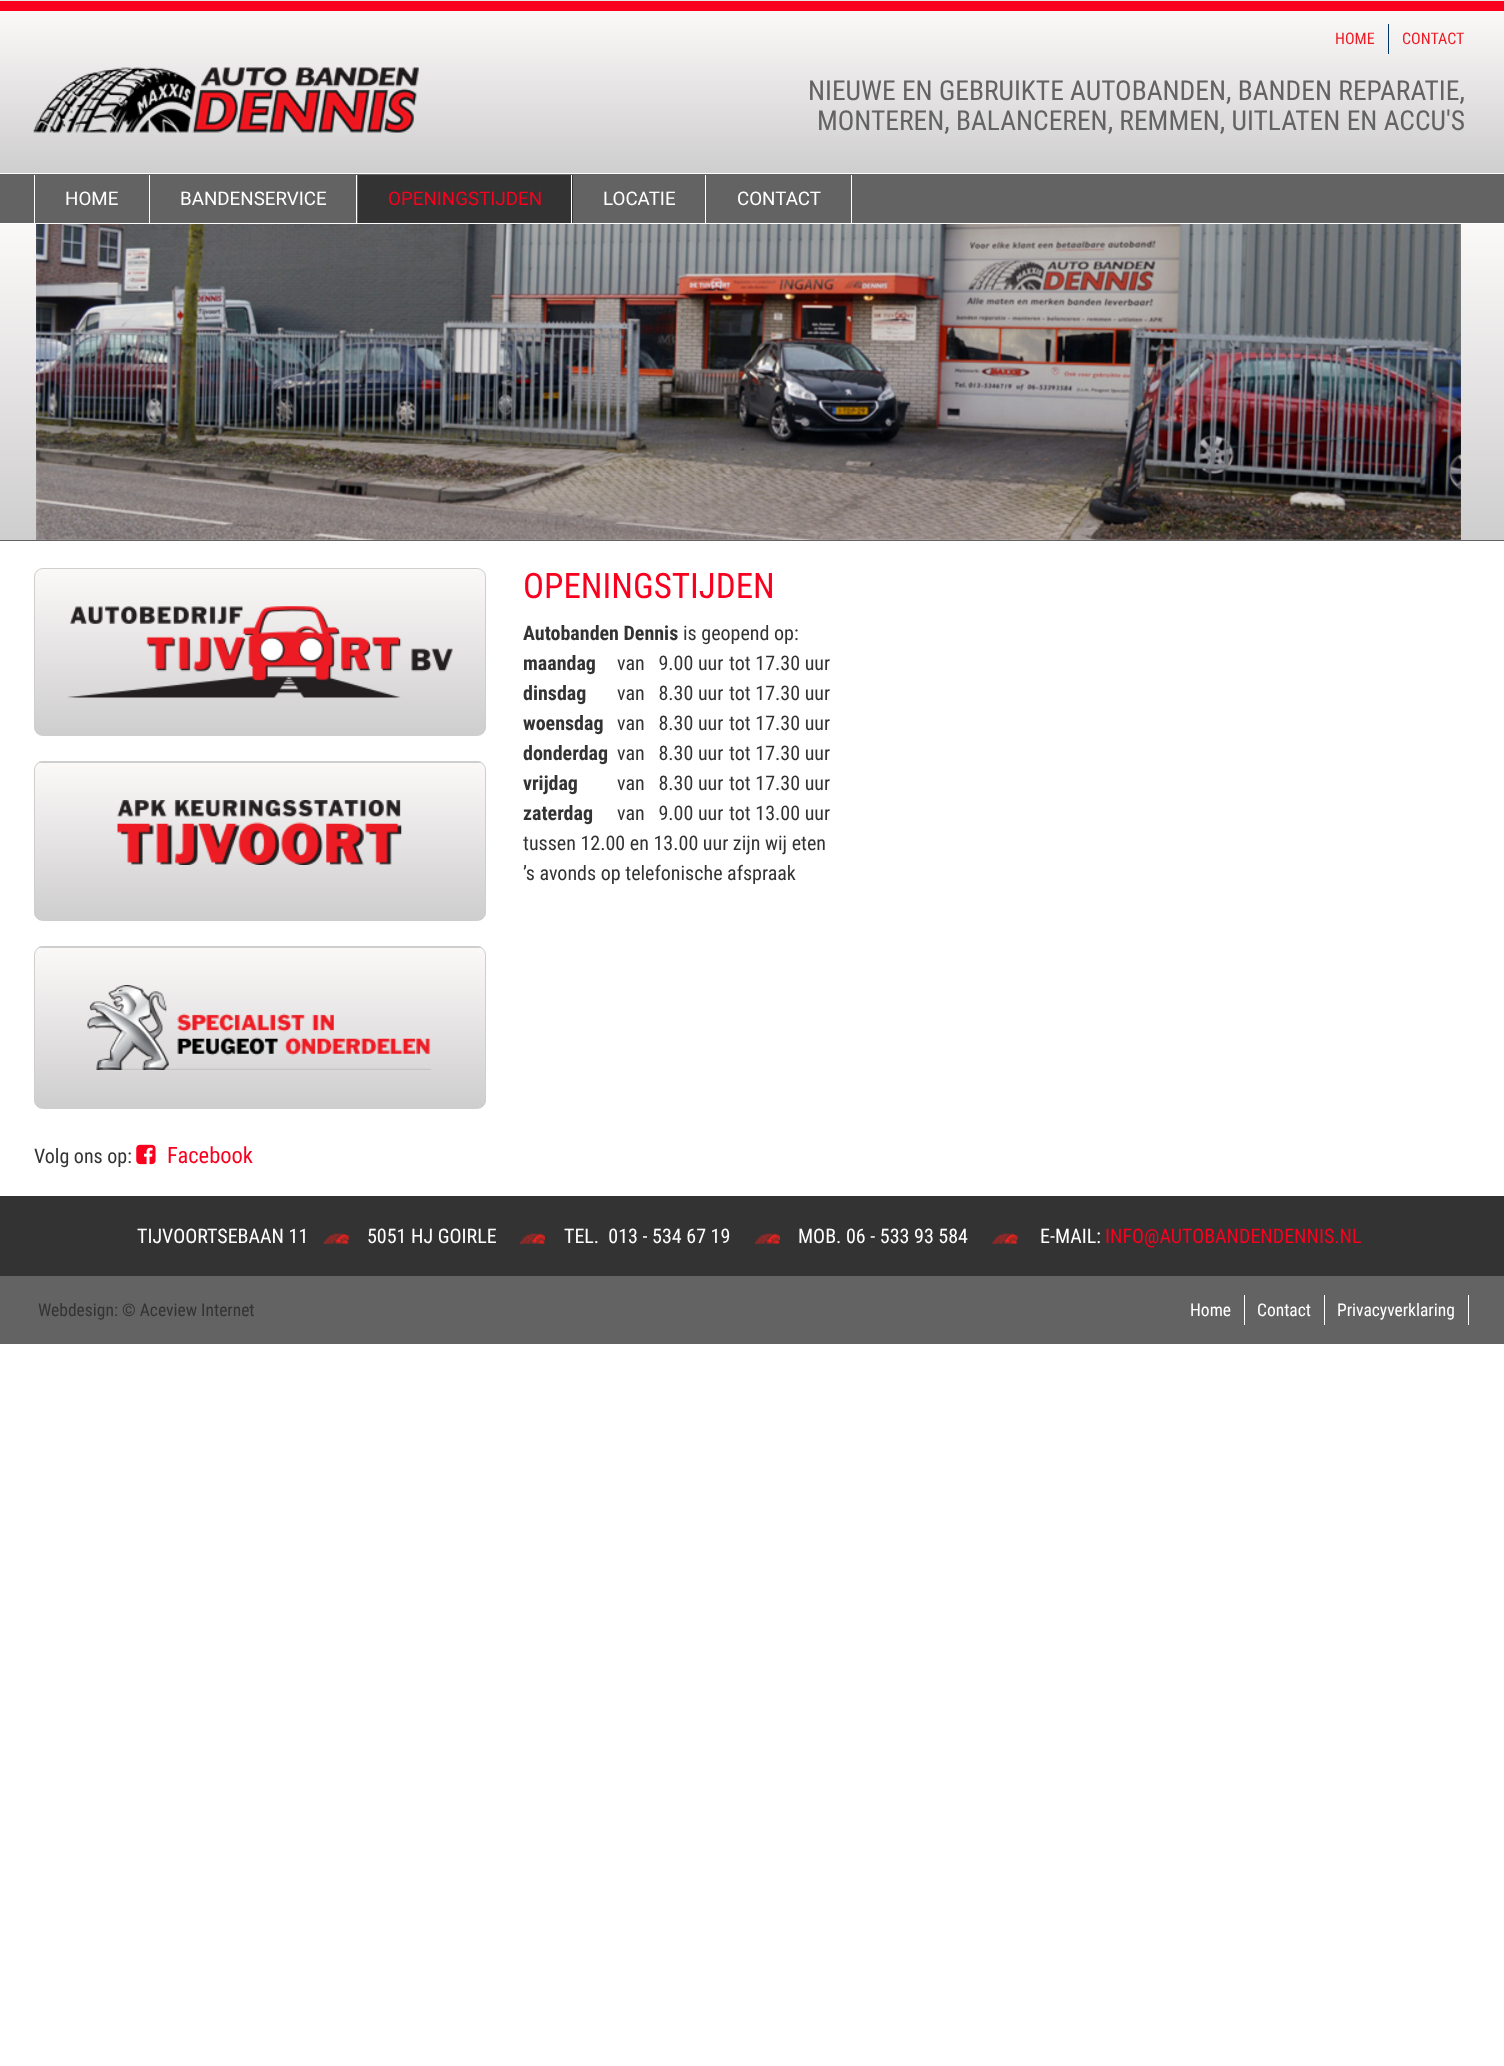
<!DOCTYPE html>
<meta charset="utf-8">
<style>body { margin: 0 } canvas { display: block }</style>
<canvas id="canvas" width="1504" height="2066"></canvas>
<script type="module">
  const canvas = document.getElementById("canvas");
  const g = canvas.getContext("2d");
  g.miterLimit = 4;
  g.fontKerning = "normal";
  function drawText(s, x, y, [font, color]) {
    g.font = font;
    g.fillStyle = color;
    g.fillText(s, x, y);
  }
  function fillBox(x, y, w, h, color) {
    g.fillStyle = color;
    g.fillRect(x, y, w, h);
  }
  async function drawPicture(src, x, y, w, h) {
    const img = new Image();
    img.src = src;
    await img.decode();
    g.drawImage(img, x, y, w, h);
  }
  let gradient;

  const s1 = ["16px Roboto Condensed", "#ED1C24"];
  const s2 = ["27.5px Roboto Condensed", "#636363"];
  const s3 = ["18.75px Roboto", "#FFFFFF"];
  const s4 = ["18.75px Roboto", "#F9001E"];
  const s5 = ["35px Roboto Condensed", "#F9001E"];
  const s6 = ["bold 20px Roboto Condensed", "#333333"];
  const s7 = ["20px Roboto Condensed", "#333333"];
  const s8 = ["22.5px Roboto Condensed", "#F9001E"];
  const s9 = ["20px Roboto Condensed", "#FFFFFF"];
  const s10 = ["20px Roboto Condensed", "#F9001E"];
  const s11 = ["17.5px Roboto Condensed", "#333333"];
  const s12 = ["17.5px Roboto Condensed", "#FFFFFF"];

  fillBox(0, 0, 1504, 2066, "#FFFFFF");
  fillBox(0, 0, 1504, 1, "#E7E7E8");
  gradient = g.createLinearGradient(753, 173, 753, 11);
  gradient.addColorStop(0, "#CFCECE");
  gradient.addColorStop(1, "#FBF8F8");
  g.fillStyle = gradient;
  g.fillRect(0, 11, 1504, 162);
  fillBox(0, 1, 1504, 10, "#F9001E");
  await drawPicture("pic1.png", 33, 67, 386, 66);
  drawText("HOME", 1335, 44, s1);
  fillBox(1388, 24, 1, 30, "#003366");
  drawText("CONTACT", 1402, 44, s1);
  drawText("NIEUWE EN GEBRUIKTE AUTOBANDEN, BANDEN REPARATIE,", 808, 100, s2);
  drawText("MONTEREN, BALANCEREN, REMMEN, UITLATEN EN ACCU'S", 817, 130, s2);
  fillBox(0, 174, 1504, 49, "#636363");
  fillBox(149, 175, 1, 48, "#FFFFFF");
  fillBox(34, 175, 1, 48, "#FFFFFF");
  drawText("HOME", 65, 205, s3);
  fillBox(356, 175, 1, 48, "#FFFFFF");
  drawText("BANDENSERVICE", 180, 205, s3);
  fillBox(358, 175, 215, 48, "#333333");
  fillBox(571, 175, 1, 48, "#FFFFFF");
  drawText("OPENINGSTIJDEN", 388, 205, s4);
  fillBox(705, 175, 1, 48, "#FFFFFF");
  drawText("LOCATIE", 603, 205, s3);
  fillBox(851, 175, 1, 48, "#FFFFFF");
  drawText("CONTACT", 737, 205, s3);
  gradient = g.createLinearGradient(753, 540, 753, 224);
  gradient.addColorStop(0, "#CFCECE");
  gradient.addColorStop(1, "#FBF8F8");
  g.fillStyle = gradient;
  g.fillRect(0, 224, 1504, 316);
  fillBox(0, 540, 1504, 1, "#636363");
  await drawPicture("pic2.png", 36, 224, 1425, 316);
  drawText("OPENINGSTIJDEN", 523, 598, s5);
  drawText("Autobanden Dennis", 523, 640, s6);
  drawText("is geopend op:", 683, 640, s7);
  drawText("maandag", 523, 670, s6);
  drawText("van   9.00 uur", 617, 670, s7);
  drawText("tot 17.30 uur", 729, 670, s7);
  drawText("dinsdag", 523, 700, s6);
  drawText("van   8.30 uur", 617, 700, s7);
  drawText("tot 17.30 uur", 729, 700, s7);
  drawText("woensdag", 523, 730, s6);
  drawText("van   8.30 uur", 617, 730, s7);
  drawText("tot 17.30 uur", 729, 730, s7);
  drawText("donderdag", 523, 760, s6);
  drawText("van   8.30 uur", 617, 760, s7);
  drawText("tot 17.30 uur", 729, 760, s7);
  drawText("vrijdag", 523, 790, s6);
  drawText("van   8.30 uur", 617, 790, s7);
  drawText("tot 17.30 uur", 729, 790, s7);
  drawText("zaterdag", 523, 820, s6);
  drawText("van   9.00 uur", 617, 820, s7);
  drawText("tot 13.00 uur", 729, 820, s7);
  drawText("tussen 12.00 en 13.00 uur zijn wij eten", 523, 850, s7);
  drawText("’s avonds op telefonische afspraak", 523, 880, s7);
  g.save();
  g.beginPath();
  g.roundRect(34, 568, 452, 168, 9);
  g.clip();
  gradient = g.createLinearGradient(260, 735, 260, 569);
  gradient.addColorStop(0, "#CFCECE");
  gradient.addColorStop(1, "#FBF8F8");
  g.fillStyle = gradient;
  g.fillRect(34, 569, 452, 166);
  g.restore();
  g.beginPath();
  g.roundRect(34.5, 568.5, 451, 167, 8.5);
  g.strokeStyle = "#CFCECE";
  g.stroke();
  await drawPicture("pic3.png", 67, 606, 386, 92);
  g.save();
  g.beginPath();
  g.roundRect(34, 761, 452, 160, 9);
  g.clip();
  gradient = g.createLinearGradient(260, 763, 260, 605);
  gradient.addColorStop(0, "#CFCECE");
  gradient.addColorStop(1, "#FBF8F8");
  g.fillStyle = gradient;
  g.fillRect(34, 761, 452, 2);
  gradient = g.createLinearGradient(260, 920, 260, 763);
  gradient.addColorStop(0, "#CFCECE");
  gradient.addColorStop(1, "#FBF8F8");
  g.fillStyle = gradient;
  g.fillRect(34, 763, 452, 157);
  g.restore();
  g.beginPath();
  g.roundRect(34.5, 761.5, 451, 159, 8.5);
  g.stroke();
  await drawPicture("pic4.png", 117, 800, 285, 65);
  g.save();
  g.beginPath();
  g.roundRect(34, 946, 452, 163, 9);
  g.clip();
  gradient = g.createLinearGradient(260, 948, 260, 788);
  gradient.addColorStop(0, "#CFCECE");
  gradient.addColorStop(1, "#FBF8F8");
  g.fillStyle = gradient;
  g.fillRect(34, 946, 452, 2);
  gradient = g.createLinearGradient(260, 1108, 260, 948);
  gradient.addColorStop(0, "#CFCECE");
  gradient.addColorStop(1, "#FBF8F8");
  g.fillStyle = gradient;
  g.fillRect(34, 948, 452, 160);
  g.restore();
  g.beginPath();
  g.roundRect(34.5, 946.5, 451, 162, 8.5);
  g.stroke();
  await drawPicture("pic5.png", 87, 985, 345, 85);
  drawText("Volg ons op:", 34, 1163, s7);
  await drawPicture("pic6.png", 136, 1144, 20, 21);
  drawText("Facebook", 167, 1163, s8);
  fillBox(0, 1196, 1504, 80, "#333333");
  drawText("TIJVOORTSEBAAN 11", 137, 1243, s9);
  await drawPicture("pic7.png", 323, 1233, 26, 11);
  drawText("5051 HJ GOIRLE", 367, 1243, s9);
  await drawPicture("pic8.png", 519, 1233, 26, 11);
  drawText("TEL.  013 - 534 67 19", 564, 1243, s9);
  await drawPicture("pic9.png", 754, 1233, 26, 11);
  drawText("MOB. 06 - 533 93 584", 798, 1243, s9);
  await drawPicture("pic10.png", 992, 1233, 26, 11);
  drawText("E-MAIL:", 1040, 1243, s9);
  drawText("INFO@AUTOBANDENDENNIS.NL", 1105, 1243, s10);
  fillBox(0, 1276, 1504, 68, "#636363");
  drawText("Webdesign: © Aceview Internet", 38, 1316, s11);
  fillBox(1244, 1295, 1, 30, "#FFFFFF");
  drawText("Home", 1190, 1316, s12);
  fillBox(1324, 1295, 1, 30, "#FFFFFF");
  drawText("Contact", 1257, 1316, s12);
  fillBox(1468, 1295, 1, 30, "#FFFFFF");
  drawText("Privacyverklaring", 1337, 1316, s12);
</script>
